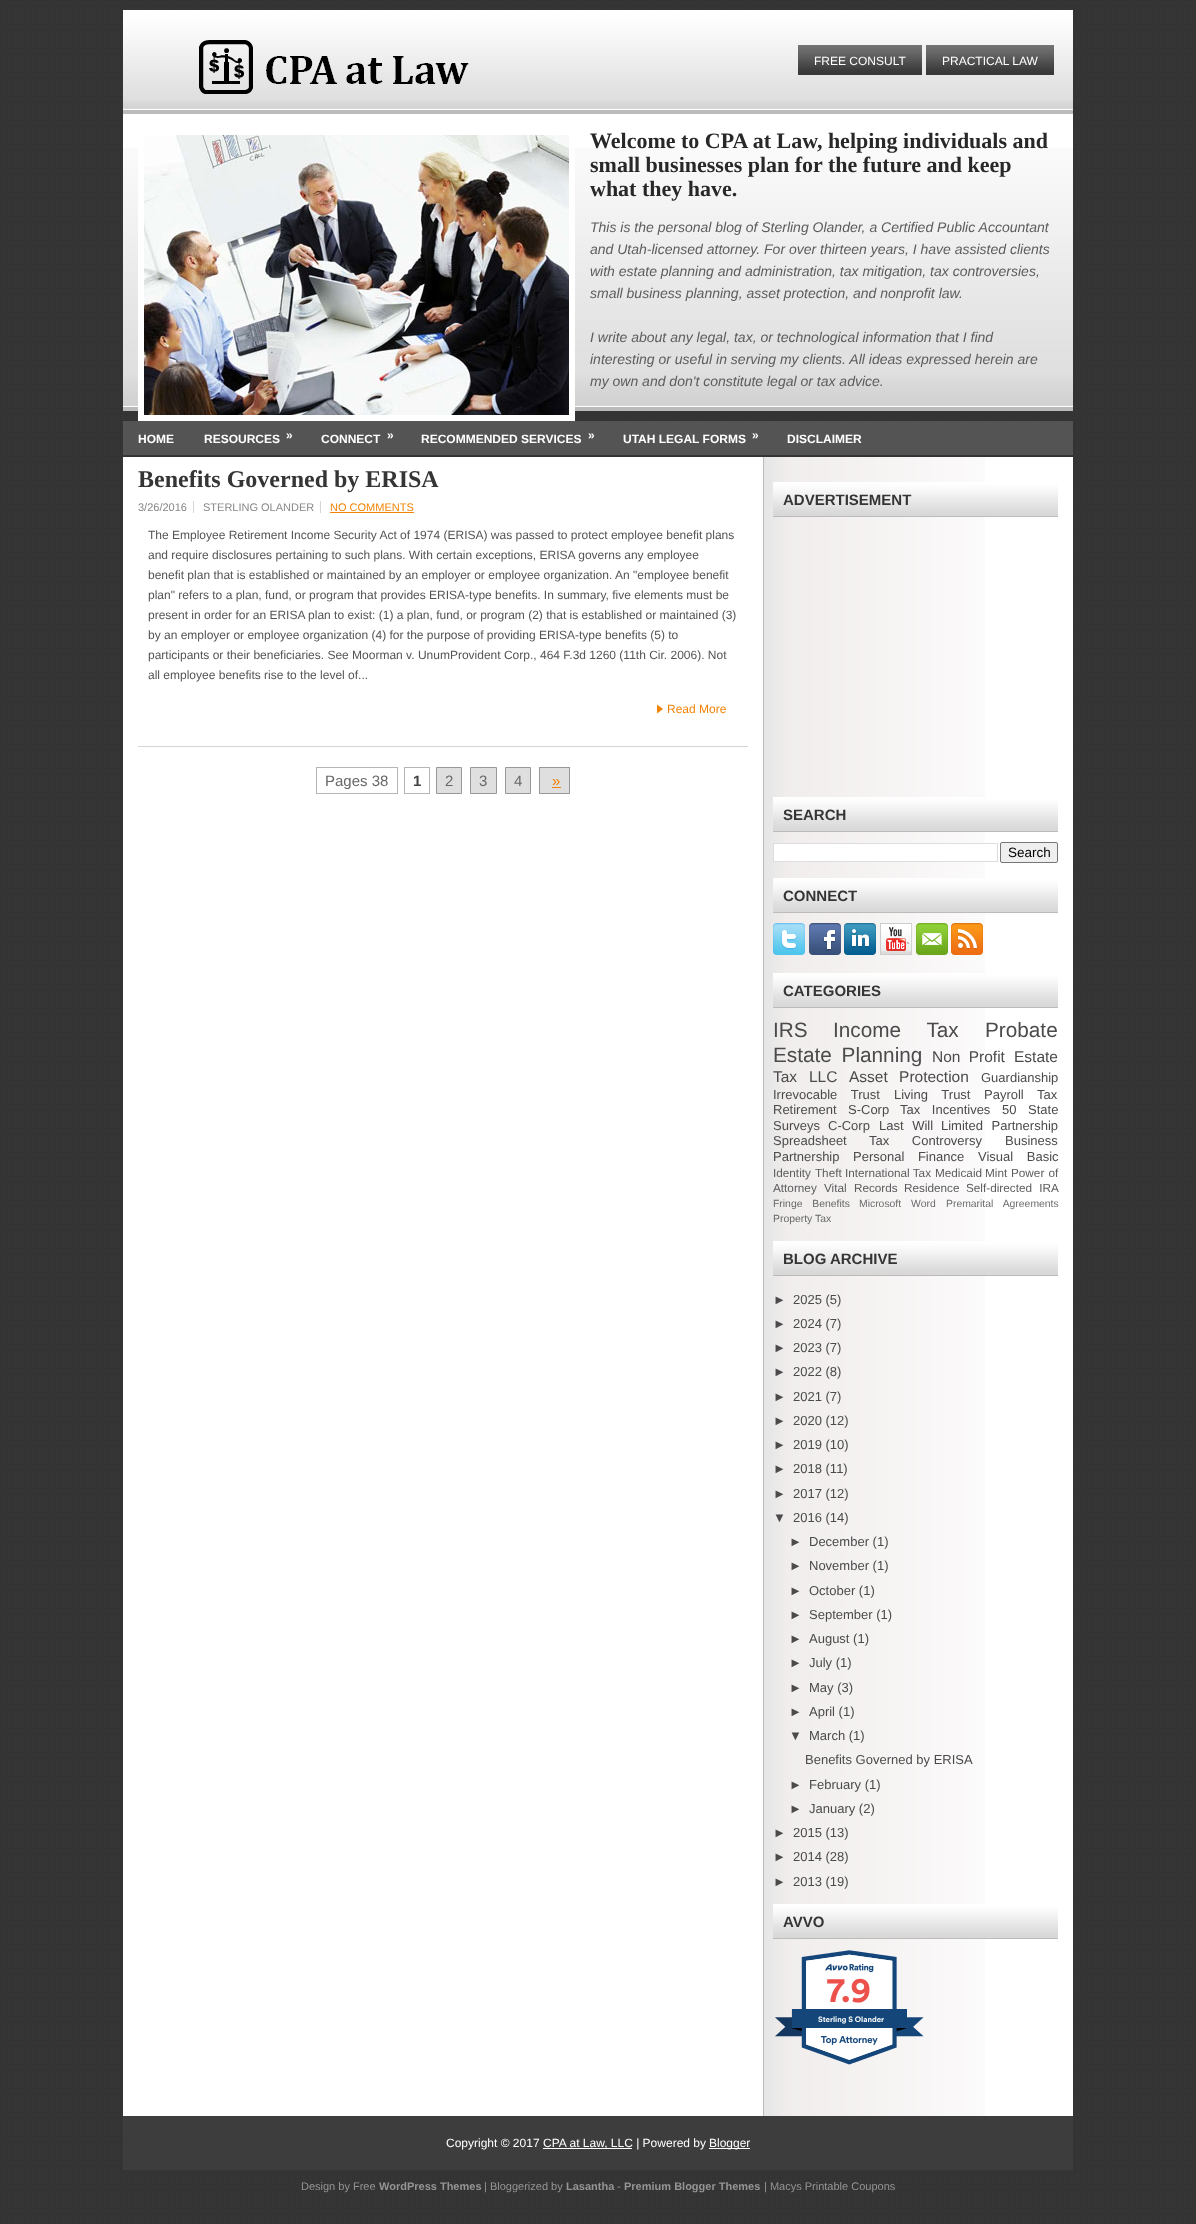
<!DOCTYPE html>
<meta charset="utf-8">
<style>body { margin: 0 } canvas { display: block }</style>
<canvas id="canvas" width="1196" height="2224"></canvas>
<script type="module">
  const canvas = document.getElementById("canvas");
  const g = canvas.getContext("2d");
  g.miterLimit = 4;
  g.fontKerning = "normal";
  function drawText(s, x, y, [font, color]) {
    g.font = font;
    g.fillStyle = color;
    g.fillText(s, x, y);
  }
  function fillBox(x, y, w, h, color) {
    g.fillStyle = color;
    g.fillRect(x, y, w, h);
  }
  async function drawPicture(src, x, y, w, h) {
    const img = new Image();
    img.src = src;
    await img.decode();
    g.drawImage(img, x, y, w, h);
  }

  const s1 = ["12px Liberation Sans", "#FFFFFF"];
  const s2 = ["bold 22px Liberation Serif", "#292828"];
  const s3 = ["italic 14px Liberation Sans", "#5C5C5C"];
  const s4 = ["bold 12px Liberation Sans", "#FFFFFF"];
  const s5 = ["bold 24px Liberation Serif", "#353535"];
  const s6 = ["11px Liberation Sans", "#878787"];
  const s7 = ["11px Liberation Sans", "#F28306"];
  const s8 = ["12px Liberation Sans", "#545454"];
  const s9 = ["12px Liberation Sans", "#F28306"];
  const s10 = ["15px Liberation Sans", "#676767"];
  const s11 = ["bold 15px Liberation Sans", "#434343"];
  const s12 = ["15px Liberation Sans", "#F28306"];
  const s13 = ["bold 15px Liberation Sans", "#353535"];
  const s14 = ["13.5px Liberation Sans", "#000000"];
  const s15 = ["20.75px Liberation Sans", "#4B4B4B"];
  const s16 = ["15.5px Liberation Sans", "#4B4B4B"];
  const s17 = ["13px Liberation Sans", "#4B4B4B"];
  const s18 = ["11.75px Liberation Sans", "#5C5C5C"];
  const s19 = ["10.4px Liberation Sans", "#676767"];
  const s20 = ["10.4px Liberation Sans", "#6D6D6D"];
  const s21 = ["bold 35px Circular", "#ED514C"];
  const s22 = ["bold 7.75px Circular", "#FFFFFF"];
  const s23 = ["11px Liberation Sans", "#959595"];
  const s24 = ["bold 11px Liberation Sans", "#959595"];

  fillBox(0, 0, 1196, 2224, "#FFFFFF");
  await drawPicture("pic1.png", 0, 0, 1196, 2224);
  await drawPicture("pic2.png", 123, 10, 950, 100);
  fillBox(123, 110, 950, 4, "#BBBBBB");
  await drawPicture("pic3.png", 199, 40, 270, 54);
  await drawPicture("pic4.png", 798, 45, 124, 30);
  drawText("FREE CONSULT", 814, 65, s1);
  await drawPicture("pic5.png", 926, 45, 128, 30);
  drawText("PRACTICAL LAW", 942, 65, s1);
  fillBox(123, 114, 950, 293, "#FFFFFF");
  await drawPicture("pic6.png", 123, 148, 950, 258);
  fillBox(123, 407, 950, 4, "#BBBBBB");
  g.strokeStyle = "#FFFFFF";
  g.lineWidth = 6;
  g.strokeRect(141, 132, 431, 286);
  await drawPicture("pic7.png", 144, 135, 425, 280);
  drawText("Welcome to CPA at Law, helping individuals and", 590, 148, s2);
  drawText("small businesses plan for the future and keep", 590, 172, s2);
  drawText("what they have.", 590, 196, s2);
  drawText("This is the personal blog of Sterling Olander, a Certified Public Accountant", 590, 232, s3);
  drawText("and Utah-licensed attorney. For over thirteen years, I have assisted clients", 590, 254, s3);
  drawText("with estate planning and administration, tax mitigation, tax controversies,", 590, 276, s3);
  drawText("small business planning, asset protection, and nonprofit law.", 590, 298, s3);
  drawText("I write about any legal, tax, or technological information that I find", 590, 342, s3);
  drawText("interesting or useful in serving my clients. All ideas expressed herein are", 590, 364, s3);
  drawText("my own and don't constitute legal or tax advice.", 590, 386, s3);
  fillBox(123, 421, 950, 34, "#545454");
  drawText("HOME", 138, 443, s4);
  drawText("RESOURCES", 204, 443, s4);
  drawText("»", 286, 439, s4);
  drawText("CONNECT", 321, 443, s4);
  drawText("»", 387, 439, s4);
  drawText("RECOMMENDED SERVICES", 421, 443, s4);
  drawText("»", 588, 439, s4);
  drawText("UTAH LEGAL FORMS", 623, 443, s4);
  drawText("»", 752, 439, s4);
  drawText("DISCLAIMER", 787, 443, s4);
  fillBox(123, 457, 950, 1659, "#FFFFFF");
  await drawPicture("pic8.png", 763, 457, 222, 1659);
  fillBox(138, 746, 610, 1, "#D5D5D5");
  drawText("Benefits Governed by ERISA", 138, 487, s5);
  drawText("3/26/2016", 138, 511, s6);
  drawText("STERLING OLANDER", 203, 511, s6);
  fillBox(193, 501, 1, 12, "#D4D7D8");
  drawText("NO COMMENTS", 330, 511, s7);
  fillBox(320, 501, 1, 12, "#D4D7D8");
  fillBox(330, 512, 84, 1, "#F28306");
  drawText("The Employee Retirement Income Security Act of 1974 (ERISA) was passed to protect employee benefit plans", 148, 539, s8);
  drawText("and require disclosures pertaining to such plans. With certain exceptions, ERISA governs any employee", 148, 559, s8);
  drawText("benefit plan that is established or maintained by an employer or employee organization. An \"employee benefit", 148, 579, s8);
  drawText("plan\" refers to a plan, fund, or program that provides ERISA-type benefits. In summary, five elements must be", 148, 599, s8);
  drawText("present in order for an ERISA plan to exist: (1) a plan, fund, or program (2) that is established or maintained (3)", 148, 619, s8);
  drawText("by an employer or employee organization (4) for the purpose of providing ERISA-type benefits (5) to", 148, 639, s8);
  drawText("participants or their beneficiaries. See Moorman v. UnumProvident Corp., 464 F.3d 1260 (11th Cir. 2006). Not", 148, 659, s8);
  drawText("all employee benefits rise to the level of...", 148, 679, s8);
  await drawPicture("pic9.png", 657, 704, 6, 10);
  drawText("Read More", 667, 713, s9);
  g.strokeStyle = "#B6B5B5";
  g.lineWidth = 1;
  g.strokeRect(316.5, 767.5, 81, 26);
  drawText("Pages 38", 325, 786, s10);
  g.strokeRect(404.5, 767.5, 25, 26);
  drawText("1", 413, 786, s11);
  g.fillStyle = "#DFDFDF";
  g.beginPath();
  g.rect(436.5, 767.5, 25, 26);
  g.fill();
  g.strokeStyle = "#989898";
  g.stroke();
  drawText("2", 445, 786, s10);
  g.fillStyle = "#DFDFDF";
  g.beginPath();
  g.rect(470.5, 767.5, 26, 26);
  g.fill();
  g.stroke();
  drawText("3", 479, 786, s10);
  g.fillStyle = "#DFDFDF";
  g.beginPath();
  g.rect(505.5, 767.5, 25, 26);
  g.fill();
  g.stroke();
  drawText("4", 514, 786, s10);
  fillBox(540, 768, 29, 25, "#DFDFDF");
  drawText("»", 552, 786, s12);
  fillBox(539, 767, 31, 1, "#989898");
  fillBox(539, 793, 13, 1, "#989898");
  fillBox(539, 767, 1, 27, "#989898");
  fillBox(569, 767, 1, 27, "#989898");
  fillBox(552, 793, 18, 1, "#989898");
  fillBox(552, 787, 9, 1, "#F28306");
  await drawPicture("pic10.png", 773, 482, 285, 35);
  drawText("ADVERTISEMENT", 783, 505, s13);
  await drawPicture("pic10.png", 773, 797, 285, 35);
  drawText("SEARCH", 783, 820, s13);
  fillBox(774, 844, 211, 17, "#FFFFFF");
  g.strokeStyle = "#DDDDDD";
  g.strokeRect(773.5, 843.5, 224, 18);
  g.fillStyle = "#EFEFEF";
  g.beginPath();
  g.roundRect(1000.5, 842.5, 57, 20, 1.5);
  g.fill();
  g.strokeStyle = "#767676";
  g.stroke();
  drawText("Search", 1008, 857, s14);
  await drawPicture("pic10.png", 773, 878, 285, 35);
  drawText("CONNECT", 783, 901, s13);
  await drawPicture("pic11.png", 773, 923, 32, 32);
  await drawPicture("pic12.png", 809, 923, 32, 32);
  await drawPicture("pic13.png", 844, 923, 32, 32);
  await drawPicture("pic14.png", 880, 923, 32, 32);
  await drawPicture("pic15.png", 916, 923, 32, 32);
  await drawPicture("pic16.png", 951, 923, 32, 32);
  await drawPicture("pic10.png", 773, 973, 285, 35);
  drawText("CATEGORIES", 783, 996, s13);
  drawText("IRS", 773, 1037, s15);
  g.wordSpacing = "20px";
  drawText("Income Tax", 833, 1037, s15);
  g.wordSpacing = "0px";
  drawText("Probate", 985, 1037, s15);
  g.wordSpacing = "4px";
  drawText("Estate Planning", 773, 1062, s15);
  drawText("Non Profit", 932, 1062, s16);
  g.wordSpacing = "0px";
  drawText("Estate", 1014, 1062, s16);
  drawText("Tax", 773, 1082, s16);
  drawText("LLC", 809, 1082, s16);
  g.wordSpacing = "7px";
  drawText("Asset Protection", 849, 1082, s16);
  g.wordSpacing = "0px";
  drawText("Guardianship", 981, 1082, s17);
  g.wordSpacing = "10px";
  drawText("Irrevocable Trust", 773, 1099, s17);
  drawText("Living Trust", 894, 1099, s17);
  drawText("Payroll Tax", 984, 1099, s17);
  g.wordSpacing = "0px";
  drawText("Retirement", 773, 1114, s17);
  drawText("S-Corp", 848, 1114, s17);
  g.wordSpacing = "8px";
  drawText("Tax Incentives", 900, 1114, s17);
  drawText("50 State", 1002, 1114, s17);
  g.wordSpacing = "0px";
  drawText("Surveys", 773, 1130, s17);
  drawText("C-Corp", 828, 1130, s17);
  g.wordSpacing = "5px";
  drawText("Last Will", 879, 1130, s17);
  drawText("Limited Partnership", 941, 1130, s17);
  g.wordSpacing = "0px";
  drawText("Spreadsheet", 773, 1145, s17);
  g.wordSpacing = "19px";
  drawText("Tax Controversy", 869, 1145, s17);
  g.wordSpacing = "0px";
  drawText("Business", 1005, 1145, s17);
  drawText("Partnership", 773, 1161, s17);
  g.wordSpacing = "10px";
  drawText("Personal Finance", 853, 1161, s17);
  drawText("Visual Basic", 978, 1161, s17);
  g.wordSpacing = "1px";
  drawText("Identity Theft", 773, 1177, s18);
  g.wordSpacing = "0px";
  drawText("International Tax", 845, 1177, s18);
  drawText("Medicaid", 935, 1177, s18);
  drawText("Mint", 985, 1177, s18);
  g.wordSpacing = "1px";
  drawText("Power of", 1011, 1177, s18);
  g.wordSpacing = "0px";
  drawText("Attorney", 773, 1192, s18);
  g.wordSpacing = "4px";
  drawText("Vital Records", 824, 1192, s18);
  g.wordSpacing = "0px";
  drawText("Residence", 904, 1192, s18);
  g.wordSpacing = "4px";
  drawText("Self-directed IRA", 966, 1192, s18);
  g.wordSpacing = "7px";
  drawText("Fringe Benefits", 773, 1207, s19);
  drawText("Microsoft Word", 859, 1207, s20);
  drawText("Premarital Agreements", 946, 1207, s20);
  g.wordSpacing = "0px";
  drawText("Property Tax", 773, 1222, s19);
  await drawPicture("pic10.png", 773, 1241, 285, 35);
  drawText("BLOG ARCHIVE", 783, 1264, s13);
  drawText("►", 773, 1304, s17);
  drawText("2025 (5)", 793, 1304, s17);
  drawText("►", 773, 1328, s17);
  drawText("2024 (7)", 793, 1328, s17);
  drawText("►", 773, 1352, s17);
  drawText("2023 (7)", 793, 1352, s17);
  drawText("►", 773, 1376, s17);
  drawText("2022 (8)", 793, 1376, s17);
  drawText("►", 773, 1401, s17);
  drawText("2021 (7)", 793, 1401, s17);
  drawText("►", 773, 1425, s17);
  drawText("2020 (12)", 793, 1425, s17);
  drawText("►", 773, 1449, s17);
  drawText("2019 (10)", 793, 1449, s17);
  drawText("►", 773, 1473, s17);
  drawText("2018 (11)", 793, 1473, s17);
  drawText("►", 773, 1498, s17);
  drawText("2017 (12)", 793, 1498, s17);
  drawText("▼", 773, 1522, s17);
  drawText("2016 (14)", 793, 1522, s17);
  drawText("►", 789, 1546, s17);
  drawText("December (1)", 809, 1546, s17);
  drawText("►", 789, 1570, s17);
  drawText("November (1)", 809, 1570, s17);
  drawText("►", 789, 1595, s17);
  drawText("October (1)", 809, 1595, s17);
  drawText("►", 789, 1619, s17);
  drawText("September (1)", 809, 1619, s17);
  drawText("►", 789, 1643, s17);
  drawText("August (1)", 809, 1643, s17);
  drawText("►", 789, 1667, s17);
  drawText("July (1)", 809, 1667, s17);
  drawText("►", 789, 1692, s17);
  drawText("May (3)", 809, 1692, s17);
  drawText("►", 789, 1716, s17);
  drawText("April (1)", 809, 1716, s17);
  drawText("▼", 789, 1740, s17);
  drawText("March (1)", 809, 1740, s17);
  drawText("Benefits Governed by ERISA", 805, 1764, s17);
  drawText("►", 789, 1789, s17);
  drawText("February (1)", 809, 1789, s17);
  drawText("►", 789, 1813, s17);
  drawText("January (2)", 809, 1813, s17);
  drawText("►", 773, 1837, s17);
  drawText("2015 (13)", 793, 1837, s17);
  drawText("►", 773, 1861, s17);
  drawText("2014 (28)", 793, 1861, s17);
  drawText("►", 773, 1886, s17);
  drawText("2013 (19)", 793, 1886, s17);
  await drawPicture("pic10.png", 773, 1904, 285, 35);
  drawText("AVVO", 783, 1927, s13);
  await drawPicture("pic17.png", 775, 1950, 149, 115);
  drawText("7.9", 827, 2002, s21);
  drawText("Sterling S Olander", 818, 2022, s22);
  fillBox(123, 2116, 950, 54, "#3D3D3D");
  drawText("Copyright © 2017", 446, 2147, s1);
  fillBox(543, 2148, 89, 1, "#FFFFFF");
  drawText("CPA at Law, LLC | Powered by", 543, 2147, s1);
  fillBox(709, 2148, 41, 1, "#FFFFFF");
  drawText("Blogger", 709, 2147, s1);
  drawText("Design by Free", 301, 2190, s23);
  drawText("WordPress Themes", 379, 2190, s24);
  drawText("| Bloggerized by", 484, 2190, s23);
  drawText("Lasantha", 566, 2190, s24);
  drawText("-", 617, 2190, s23);
  drawText("Premium Blogger Themes", 624, 2190, s24);
  drawText("| Macys Printable Coupons", 764, 2190, s23);
</script>
